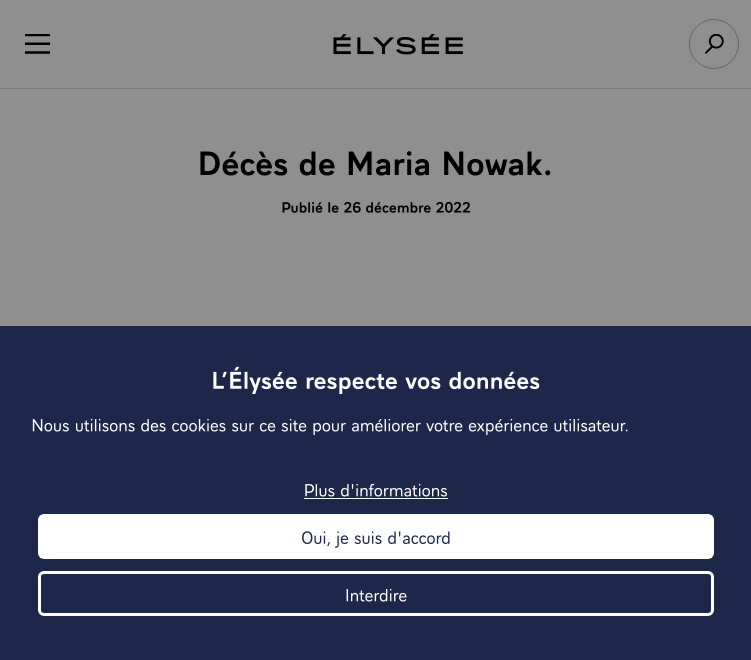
<!DOCTYPE html>
<meta charset="utf-8">
<style>body { margin: 0 } canvas { display: block }</style>
<canvas id="canvas" width="751" height="660"></canvas>
<script type="module">
  const canvas = document.getElementById("canvas");
  const g = canvas.getContext("2d");
  g.miterLimit = 4;
  g.fontKerning = "normal";
  function fillBox(x, y, w, h, color) {
    g.fillStyle = color;
    g.fillRect(x, y, w, h);
  }
  function fillRounded(x, y, w, h, r, color) {
    g.fillStyle = color;
    g.beginPath();
    g.roundRect(x, y, w, h, r);
    g.fill();
  }
  async function drawPicture(src, x, y, w, h) {
    const img = new Image();
    img.src = src;
    await img.decode();
    g.drawImage(img, x, y, w, h);
  }

  fillBox(0, 0, 751, 660, "#8F8F8F");
  fillBox(0, 88, 751, 1, "#797979");
  await drawPicture("pic1.png", 25, 34, 25, 20);
  await drawPicture("pic2.png", 333, 34, 130, 21);
  g.beginPath();
  g.arc(714, 44, 24.5, 0, Math.PI * 2);
  g.strokeStyle = "#666666";
  g.stroke();
  await drawPicture("pic3.png", 705, 34, 19, 20);
  await drawPicture("pic4.png", 200, 151, 351, 25);
  await drawPicture("pic5.png", 282, 201, 189, 12);
  fillBox(0, 326, 751, 334, "#1D274A");
  await drawPicture("pic6.png", 213, 366, 327, 28);
  await drawPicture("pic7.png", 32, 418, 596, 17);
  await drawPicture("pic8.png", 305, 483, 142, 14);
  fillBox(304, 498, 144, 1, "#FFFFFF");
  fillRounded(38, 514, 676, 45, 6, "#FFFFFF");
  await drawPicture("pic9.png", 302, 531, 148, 17);
  g.beginPath();
  g.roundRect(39.5, 572.5, 673, 42, 4.5);
  g.strokeStyle = "#FFFFFF";
  g.lineWidth = 3;
  g.stroke();
  await drawPicture("pic10.png", 346, 588, 61, 14);
</script>
